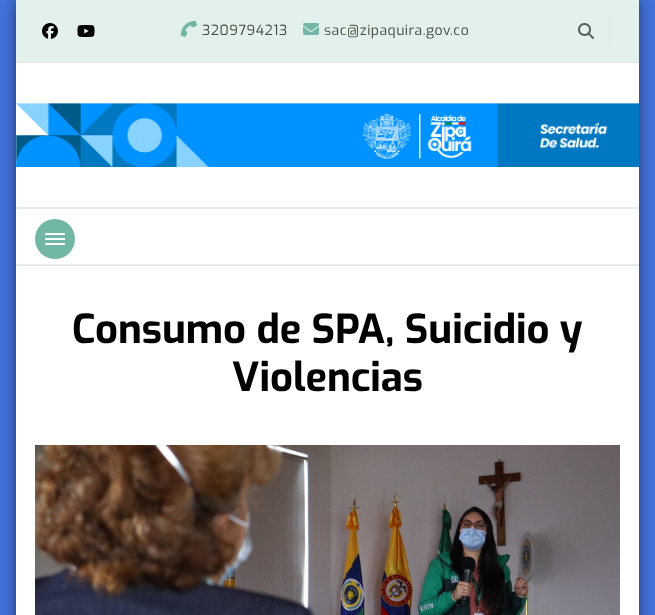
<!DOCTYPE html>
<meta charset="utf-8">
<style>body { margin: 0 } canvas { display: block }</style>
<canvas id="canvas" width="655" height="615"></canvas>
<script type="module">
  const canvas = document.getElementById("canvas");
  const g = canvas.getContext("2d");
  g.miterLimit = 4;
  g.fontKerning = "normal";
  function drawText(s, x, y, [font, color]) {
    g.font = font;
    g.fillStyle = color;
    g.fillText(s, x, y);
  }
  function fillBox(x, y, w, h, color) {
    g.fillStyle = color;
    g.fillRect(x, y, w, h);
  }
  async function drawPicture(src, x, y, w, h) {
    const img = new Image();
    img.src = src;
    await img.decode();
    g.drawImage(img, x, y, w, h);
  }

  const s1 = ["14px Exo", "#46493C"];
  const s2 = ["bold 40px Exo", "#000000"];

  fillBox(0, 0, 655, 615, "#4373DB");
  g.fillStyle = "rgba(0, 0, 0, 0.5)";
  g.filter = "blur(7.5px)";
  g.beginPath();
  g.rect(16, 0, 623, 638);
  g.fill();
  g.filter = "none";
  fillBox(16, 63, 623, 552, "#FFFFFF");
  fillBox(16, 265, 623, 1, "#E5E5E5");
  fillBox(16, 0, 623, 62, "#E3F1ED");
  fillBox(16, 62, 623, 1, "#E5E5E5");
  await drawPicture("pic1.png", 42, 23, 16, 16);
  await drawPicture("pic2.png", 77, 25, 18, 12);
  await drawPicture("pic3.png", 180, 20, 17, 17);
  g.letterSpacing = "0.5px";
  drawText("3209794213", 202, 35, s1);
  await drawPicture("pic4.png", 303, 23, 16, 12);
  drawText("sac@zipaquira.gov.co", 324, 35, s1);
  fillBox(609, 16, 1, 31, "#E5E5E5");
  await drawPicture("pic5.png", 578, 23, 16, 16);
  fillBox(16, 264, 623, 1, "#E3F1ED");
  fillBox(16, 207, 623, 2, "#E3F1ED");
  await drawPicture("pic6.png", 16, 103, 623, 64);
  g.fillStyle = "#72B7A6";
  g.beginPath();
  g.arc(55, 239, 20, 0, Math.PI * 2);
  g.fill();
  fillBox(45, 233, 20, 2, "#FFFFFF");
  fillBox(45, 238, 20, 2, "#FFFFFF");
  fillBox(45, 243, 20, 2, "#FFFFFF");
  g.letterSpacing = "0px";
  drawText("Consumo de SPA, Suicidio y", 72, 343, s2);
  drawText("Violencias", 232, 391, s2);
  await drawPicture("pic7.png", 35, 445, 585, 170);
</script>
